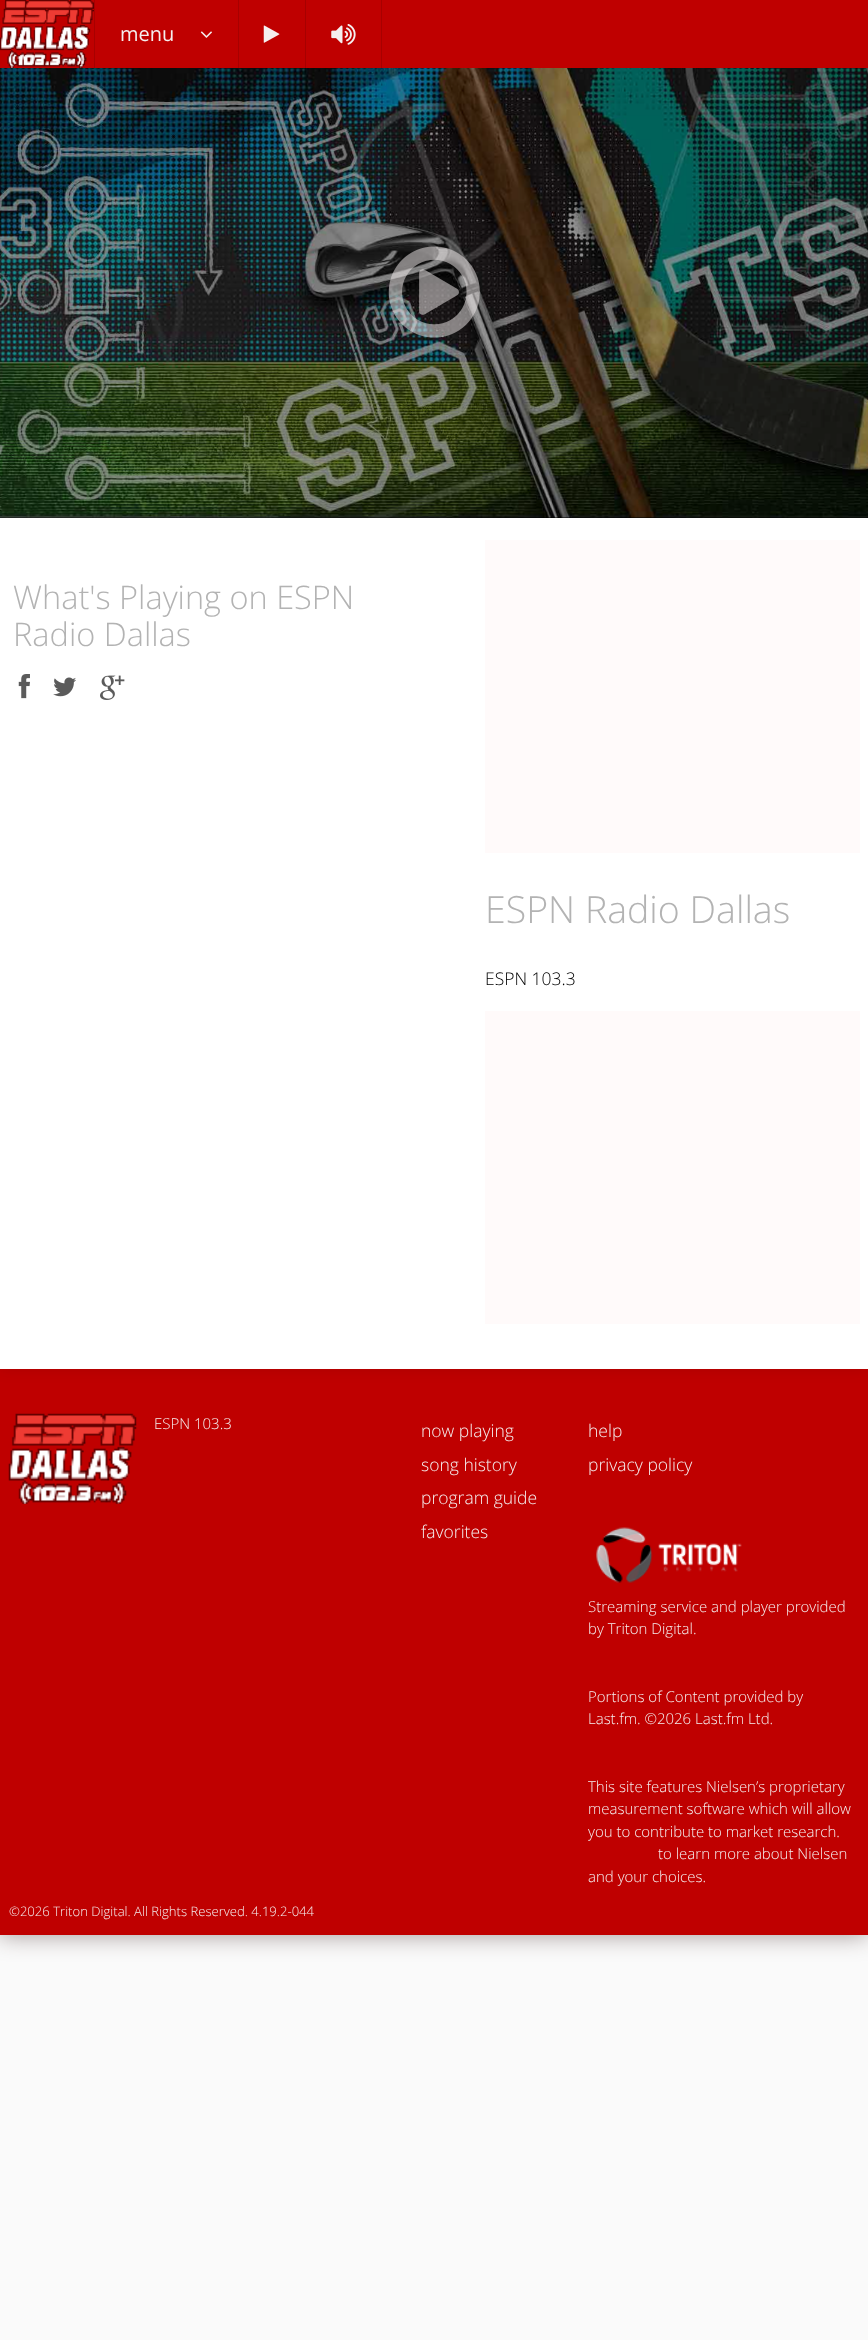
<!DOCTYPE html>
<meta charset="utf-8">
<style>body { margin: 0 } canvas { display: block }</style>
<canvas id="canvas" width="868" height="2340"></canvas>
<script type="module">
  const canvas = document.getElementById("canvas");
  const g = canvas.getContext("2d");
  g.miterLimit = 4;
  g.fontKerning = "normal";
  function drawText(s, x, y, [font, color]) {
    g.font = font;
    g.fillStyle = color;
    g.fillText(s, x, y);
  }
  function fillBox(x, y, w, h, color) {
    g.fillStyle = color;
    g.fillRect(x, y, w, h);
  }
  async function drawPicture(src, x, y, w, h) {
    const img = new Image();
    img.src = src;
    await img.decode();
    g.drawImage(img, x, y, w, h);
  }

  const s1 = ["20px Open Sans", "#F5EFEF"];
  const s2 = ["300 32.5px Open Sans", "#B3B3B3"];
  const s3 = ["300 37.5px Open Sans", "#B3B3B3"];
  const s4 = ["300 17.5px Open Sans", "#000000"];
  const s5 = ["300 15px Open Sans", "#F5EFEF"];
  const s6 = ["300 17.5px Open Sans", "#F5EFEF"];
  const s7 = ["300 13.1px Open Sans", "#F5EFEF"];

  fillBox(0, 0, 868, 2340, "#FAFAFA");
  g.fillStyle = "rgba(28, 0, 0, 0.4)";
  g.filter = "blur(12.5px)";
  g.beginPath();
  g.rect(-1, 68, 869, 1867);
  g.fill();
  g.filter = "none";
  fillBox(0, 0, 868, 68, "#BF0000");
  fillBox(94, 0, 1, 68, "#A70000");
  await drawPicture("pic1.png", 0, 0, 94, 68);
  fillBox(238, 0, 1, 68, "#A70000");
  drawText("menu", 120, 41, s1);
  await drawPicture("pic2.png", 200, 31, 12, 7);
  fillBox(305, 0, 1, 68, "#A70000");
  await drawPicture("pic3.png", 263, 25, 17, 18);
  fillBox(381, 0, 1, 68, "#A70000");
  await drawPicture("pic4.png", 331, 24, 25, 21);
  fillBox(0, 517, 868, 1, "#000000");
  await drawPicture("pic5.png", 0, 68, 868, 450);
  fillBox(0, 68, 868, 450, "rgba(0, 0, 0, 0.42)");
  await drawPicture("pic6.png", 388, 246, 92, 92);
  fillBox(0, 1369, 868, 566, "#BF0000");
  g.fillStyle = "rgba(0, 0, 0, 0.1)";
  g.filter = "blur(7.5px)";
  g.beginPath();
  g.rect(0, 518, 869, 851);
  g.fill();
  g.filter = "none";
  fillBox(0, 518, 868, 851, "#FFFFFF");
  drawText("What's Playing on ESPN", 13, 609, s2);
  drawText("Radio Dallas", 13, 646, s2);
  await drawPicture("pic7.png", 18, 674, 12, 25);
  await drawPicture("pic8.png", 53, 677, 23, 20);
  await drawPicture("pic9.png", 100, 675, 25, 25);
  fillBox(485, 540, 375, 313, "#FFFAFA");
  drawText("ESPN Radio Dallas", 485, 923, s3);
  drawText("ESPN 103.3", 485, 985, s4);
  fillBox(485, 1011, 375, 313, "#FFFAFA");
  await drawPicture("pic10.png", 8, 1413, 129, 91);
  drawText("ESPN 103.3", 154, 1429, s5);
  drawText("now playing", 421, 1437, s6);
  drawText("song history", 421, 1471, s6);
  drawText("program guide", 421, 1504, s6);
  drawText("favorites", 421, 1538, s6);
  drawText("help", 588, 1437, s6);
  drawText("privacy policy", 588, 1471, s6);
  await drawPicture("pic11.png", 596, 1527, 146, 56);
  drawText("Streaming service and player provided", 588, 1612, s5);
  drawText("by Triton Digital.", 588, 1634, s5);
  drawText("Portions of Content provided by", 588, 1702, s5);
  drawText("Last.fm. ©2026 Last.fm Ltd.", 588, 1724, s5);
  drawText("This site features Nielsen’s proprietary", 588, 1792, s5);
  drawText("measurement software which will allow", 588, 1814, s5);
  drawText("you to contribute to market research.", 588, 1837, s5);
  drawText("to learn more about Nielsen", 658, 1859, s5);
  drawText("and your choices.", 588, 1882, s5);
  drawText("©2026 Triton Digital. All Rights Reserved. 4.19.2-044", 9, 1916, s7);
</script>
